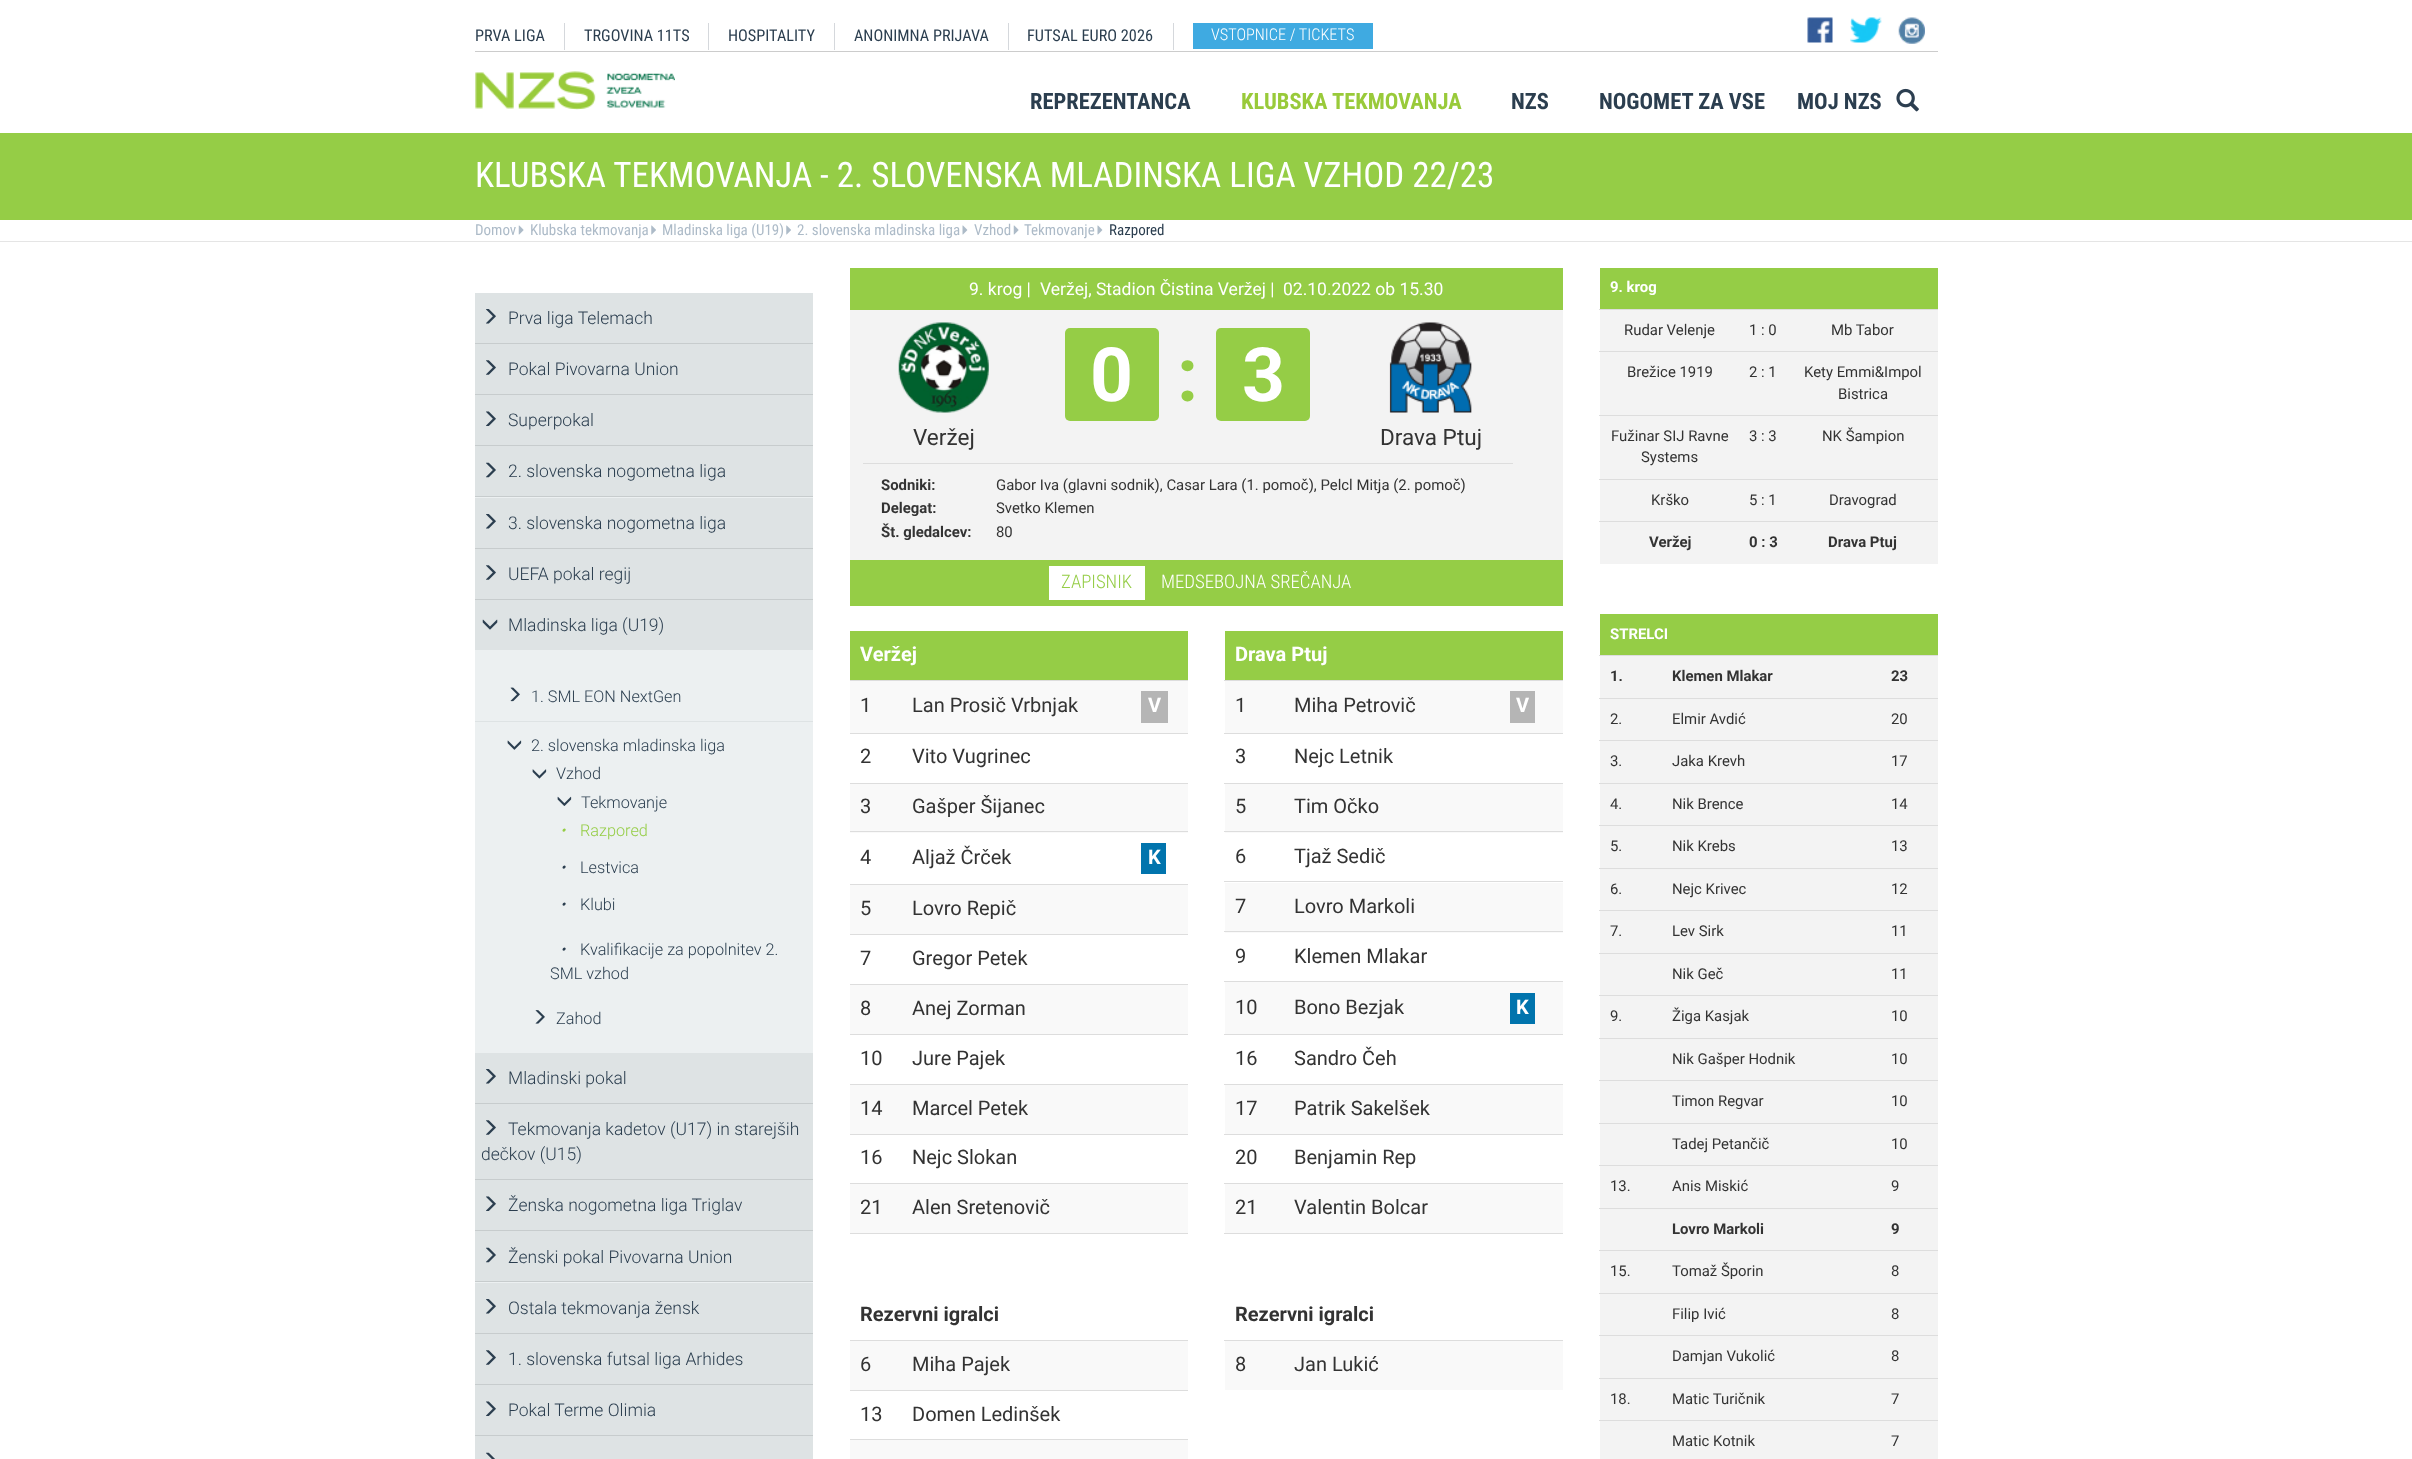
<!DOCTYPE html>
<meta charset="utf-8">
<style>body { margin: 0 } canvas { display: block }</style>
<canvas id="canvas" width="2412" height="1459"></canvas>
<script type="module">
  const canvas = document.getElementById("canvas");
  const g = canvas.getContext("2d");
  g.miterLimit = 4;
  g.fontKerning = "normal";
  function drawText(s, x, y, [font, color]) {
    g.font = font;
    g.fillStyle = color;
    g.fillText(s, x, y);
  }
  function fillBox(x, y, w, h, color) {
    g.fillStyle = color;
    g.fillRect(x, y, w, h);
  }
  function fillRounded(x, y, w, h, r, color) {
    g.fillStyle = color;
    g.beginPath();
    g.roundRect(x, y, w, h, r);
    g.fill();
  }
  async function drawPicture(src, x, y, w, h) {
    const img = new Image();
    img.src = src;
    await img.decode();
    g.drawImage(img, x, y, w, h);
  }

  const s1 = ["16.25px Roboto Condensed", "#2B3E4F"];
  const s2 = ["300 16.25px Roboto Condensed", "#FFFFFF"];
  const s3 = ["bold 22.5px Roboto Condensed", "#2B3E4F"];
  const s4 = ["bold 22.5px Roboto Condensed", "#99CA3A"];
  const s5 = ["35px Roboto Condensed", "#FFFFFF"];
  const s6 = ["15px Roboto Condensed", "#ADBBC8"];
  const s7 = ["15px Roboto Condensed", "#2B3E4F"];
  const s8 = ["300 17.5px Roboto", "#2B3E4F"];
  const s9 = ["300 16.25px Roboto", "#2B3E4F"];
  const s10 = ["italic 300 16.25px Roboto", "#95CD46"];
  const s11 = ["300 16.25px Roboto", "#95CD46"];
  const s12 = ["italic 300 16.25px Roboto", "#2B3E4F"];
  const s13 = ["17.5px Roboto", "#FFFFFF"];
  const s14 = ["bold 75px Roboto", "#FFFFFF"];
  const s15 = ["bold 75px Roboto", "#95CD46"];
  const s16 = ["22.5px Roboto", "#333333"];
  const s17 = ["bold 14.9px Roboto", "#333333"];
  const s18 = ["14.9px Roboto", "#333333"];
  const s19 = ["300 18.75px Roboto Condensed", "#95CD46"];
  const s20 = ["300 18.75px Roboto Condensed", "#FFFFFF"];
  const s21 = ["bold 20px Roboto", "#FFFFFF"];
  const s22 = ["20px Roboto", "#333333"];
  const s23 = ["bold 20px Roboto", "#333333"];
  const s24 = ["bold 14.9px Roboto", "#FFFFFF"];

  fillBox(0, 0, 2412, 1459, "#FFFFFF");
  fillBox(475, 51, 1463, 1, "#CCCCCC");
  fillBox(564, 23, 1, 27, "#D5D8DC");
  drawText("PRVA LIGA", 475, 41, s1);
  fillBox(708, 23, 1, 27, "#D5D8DC");
  drawText("TRGOVINA 11TS", 584, 41, s1);
  fillBox(834, 23, 1, 27, "#D5D8DC");
  drawText("HOSPITALITY", 728, 41, s1);
  fillBox(1008, 23, 1, 27, "#D5D8DC");
  drawText("ANONIMNA PRIJAVA", 854, 41, s1);
  fillBox(1173, 23, 1, 27, "#D5D8DC");
  drawText("FUTSAL EURO 2026", 1027, 41, s1);
  fillBox(1193, 23, 180, 26, "#3FAAE1");
  drawText("VSTOPNICE / TICKETS", 1211, 40, s2);
  await drawPicture("pic1.png", 1807, 17, 26, 26);
  await drawPicture("pic2.png", 1850, 17, 32, 26);
  await drawPicture("pic3.png", 1898, 17, 27, 27);
  await drawPicture("pic4.png", 475, 71, 200, 39);
  drawText("REPREZENTANCA", 1030, 109, s3);
  drawText("KLUBSKA TEKMOVANJA", 1241, 109, s4);
  drawText("NZS", 1511, 109, s3);
  drawText("NOGOMET ZA VSE", 1599, 109, s3);
  drawText("MOJ NZS", 1797, 109, s3);
  await drawPicture("pic5.png", 1896, 88, 23, 24);
  fillBox(0, 133, 2412, 87, "#95CD46");
  drawText("KLUBSKA TEKMOVANJA - 2. SLOVENSKA MLADINSKA LIGA VZHOD 22/23", 475, 187, s5);
  fillBox(0, 241, 2412, 1, "#E5E5E5");
  drawText("Domov", 475, 235, s6);
  await drawPicture("pic6.png", 518, 225, 6, 10);
  drawText("Klubska tekmovanja", 530, 235, s6);
  await drawPicture("pic7.png", 651, 225, 5, 10);
  drawText("Mladinska liga (U19)", 662, 235, s6);
  await drawPicture("pic7.png", 786, 225, 5, 10);
  drawText("2. slovenska mladinska liga", 797, 235, s6);
  await drawPicture("pic8.png", 962, 225, 6, 10);
  drawText("Vzhod", 974, 235, s6);
  await drawPicture("pic6.png", 1013, 225, 6, 10);
  drawText("Tekmovanje", 1024, 235, s6);
  await drawPicture("pic8.png", 1097, 225, 6, 10);
  drawText("Razpored", 1109, 235, s7);
  fillBox(475, 343, 338, 1, "#C7CCCD");
  fillBox(475, 293, 338, 50, "#DEE3E4");
  await drawPicture("pic9.png", 486, 309, 10, 15);
  drawText("Prva liga Telemach", 508, 324, s8);
  fillBox(475, 394, 338, 1, "#C7CCCD");
  fillBox(475, 344, 338, 50, "#DEE3E4");
  await drawPicture("pic10.png", 486, 360, 10, 15);
  drawText("Pokal Pivovarna Union", 508, 375, s8);
  fillBox(475, 445, 338, 1, "#C7CCCD");
  fillBox(475, 395, 338, 50, "#DEE3E4");
  await drawPicture("pic11.png", 486, 411, 10, 15);
  drawText("Superpokal", 508, 426, s8);
  fillBox(475, 497, 338, 1, "#ECF0F1");
  fillBox(475, 496, 338, 1, "#C7CCCD");
  fillBox(475, 446, 338, 50, "#DEE3E4");
  await drawPicture("pic12.png", 486, 462, 10, 16);
  drawText("2. slovenska nogometna liga", 508, 477, s8);
  fillBox(475, 548, 338, 1, "#C7CCCD");
  fillBox(475, 498, 338, 50, "#DEE3E4");
  await drawPicture("pic9.png", 486, 514, 10, 15);
  drawText("3. slovenska nogometna liga", 508, 529, s8);
  fillBox(475, 599, 338, 1, "#C7CCCD");
  fillBox(475, 549, 338, 50, "#DEE3E4");
  await drawPicture("pic10.png", 486, 565, 10, 15);
  drawText("UEFA pokal regij", 508, 580, s8);
  fillBox(475, 650, 338, 403, "#ECF0F1");
  fillBox(475, 600, 338, 50, "#DEE3E4");
  await drawPicture("pic13.png", 482, 619, 16, 11);
  drawText("Mladinska liga (U19)", 508, 631, s8);
  fillBox(475, 721, 338, 1, "#DEE3E4");
  await drawPicture("pic14.png", 510, 687, 10, 15);
  drawText("1. SML EON NextGen", 531, 702, s9);
  await drawPicture("pic15.png", 507, 740, 15, 10);
  drawText("2. slovenska mladinska liga", 531, 751, s9);
  await drawPicture("pic16.png", 532, 769, 15, 10);
  drawText("Vzhod", 556, 779, s9);
  await drawPicture("pic17.png", 557, 796, 15, 10);
  drawText("Tekmovanje", 581, 808, s9);
  drawText("•", 560, 836, s10);
  drawText("Razpored", 580, 836, s11);
  drawText("•", 560, 873, s12);
  drawText("Lestvica", 580, 873, s9);
  drawText("•", 560, 910, s12);
  drawText("Klubi", 580, 910, s9);
  drawText("•", 560, 955, s12);
  drawText("Kvalifikacije za popolnitev 2.", 580, 955, s9);
  drawText("SML vzhod", 550, 979, s9);
  await drawPicture("pic18.png", 535, 1010, 10, 14);
  drawText("Zahod", 556, 1024, s9);
  fillBox(475, 1103, 338, 1, "#C7CCCD");
  fillBox(475, 1053, 338, 50, "#DEE3E4");
  await drawPicture("pic9.png", 486, 1069, 10, 15);
  drawText("Mladinski pokal", 508, 1084, s8);
  fillBox(475, 1179, 338, 1, "#C7CCCD");
  fillBox(475, 1104, 338, 75, "#DEE3E4");
  await drawPicture("pic10.png", 486, 1120, 10, 15);
  drawText("Tekmovanja kadetov (U17) in starejših", 508, 1135, s8);
  drawText("dečkov (U15)", 481, 1160, s8);
  fillBox(475, 1230, 338, 1, "#C7CCCD");
  fillBox(475, 1180, 338, 50, "#DEE3E4");
  await drawPicture("pic11.png", 486, 1196, 10, 15);
  drawText("Ženska nogometna liga Triglav", 508, 1211, s8);
  fillBox(475, 1282, 338, 1, "#ECF0F1");
  fillBox(475, 1281, 338, 1, "#C7CCCD");
  fillBox(475, 1231, 338, 50, "#DEE3E4");
  await drawPicture("pic12.png", 486, 1247, 10, 16);
  drawText("Ženski pokal Pivovarna Union", 508, 1263, s8);
  fillBox(475, 1333, 338, 1, "#C7CCCD");
  fillBox(475, 1283, 338, 50, "#DEE3E4");
  await drawPicture("pic9.png", 486, 1299, 10, 15);
  drawText("Ostala tekmovanja žensk", 508, 1314, s8);
  fillBox(475, 1384, 338, 1, "#C7CCCD");
  fillBox(475, 1334, 338, 50, "#DEE3E4");
  await drawPicture("pic10.png", 486, 1350, 10, 15);
  drawText("1. slovenska futsal liga Arhides", 508, 1365, s8);
  fillBox(475, 1435, 338, 1, "#C7CCCD");
  fillBox(475, 1385, 338, 50, "#DEE3E4");
  await drawPicture("pic11.png", 486, 1401, 10, 15);
  drawText("Pokal Terme Olimia", 508, 1416, s8);
  fillBox(475, 1436, 338, 23, "#DEE3E4");
  await drawPicture("pic19.png", 486, 1452, 9, 7);
  fillBox(850, 268, 713, 42, "#95CD46");
  drawText("9. krog |", 969, 295, s13);
  drawText("Veržej, Stadion Čistina Veržej |", 1040, 295, s13);
  drawText("02.10.2022 ob 15.30", 1283, 295, s13);
  fillBox(850, 310, 713, 250, "#F3F3F3");
  fillBox(863, 463, 650, 1, "#DDDDDD");
  fillRounded(1065, 328, 94, 93, 5, "#95CD46");
  drawText("0", 1090, 401, s14);
  drawText(":", 1177, 401, s15);
  fillRounded(1216, 328, 94, 93, 5, "#95CD46");
  drawText("3", 1242, 401, s14);
  await drawPicture("pic20.png", 898, 322, 91, 91);
  drawText("Veržej", 913, 445, s16);
  await drawPicture("pic21.png", 1389, 322, 83, 91);
  drawText("Drava Ptuj", 1380, 445, s16);
  drawText("Sodniki:", 881, 490, s17);
  drawText("Gabor Iva (glavni sodnik), Casar Lara (1. pomoč), Pelcl Mitja (2. pomoč)", 996, 490, s18);
  drawText("Delegat:", 881, 513, s17);
  drawText("Svetko Klemen", 996, 513, s18);
  drawText("Št. gledalcev:", 881, 537, s17);
  drawText("80", 996, 537, s18);
  fillBox(850, 560, 713, 46, "#95CD46");
  fillBox(1049, 566, 96, 34, "#FFFFFF");
  drawText("ZAPISNIK", 1061, 588, s19);
  drawText("MEDSEBOJNA SREČANJA", 1161, 588, s20);
  fillBox(850, 631, 338, 49, "#95CD46");
  drawText("Veržej", 860, 661, s21);
  fillBox(850, 681, 338, 52, "#F9F9F9");
  drawText("1", 860, 712, s22);
  drawText("Lan Prosič Vrbnjak", 912, 712, s22);
  fillBox(850, 680, 338, 1, "#DDDDDD");
  fillBox(1141, 691, 27, 32, "#B5B5B5");
  drawText("V", 1148, 712, s21);
  fillBox(850, 733, 338, 1, "#DDDDDD");
  drawText("2", 860, 763, s22);
  drawText("Vito Vugrinec", 912, 763, s22);
  fillBox(850, 784, 338, 49, "#F9F9F9");
  fillBox(850, 783, 338, 1, "#DDDDDD");
  drawText("3", 860, 813, s22);
  drawText("Gašper Šijanec", 912, 813, s22);
  drawText("4", 860, 864, s22);
  drawText("Aljaž Črček", 912, 864, s22);
  fillBox(850, 831, 338, 1, "#DDDDDD");
  fillBox(1141, 843, 25, 31, "#0174AD");
  drawText("K", 1148, 864, s21);
  fillBox(850, 885, 338, 49, "#F9F9F9");
  fillBox(850, 884, 338, 1, "#DDDDDD");
  drawText("5", 860, 915, s22);
  drawText("Lovro Repič", 912, 915, s22);
  fillBox(850, 934, 338, 1, "#DDDDDD");
  drawText("7", 860, 965, s22);
  drawText("Gregor Petek", 912, 965, s22);
  fillBox(850, 985, 338, 49, "#F9F9F9");
  fillBox(850, 984, 338, 1, "#DDDDDD");
  drawText("8", 860, 1015, s22);
  drawText("Anej Zorman", 912, 1015, s22);
  fillBox(850, 1034, 338, 1, "#DDDDDD");
  drawText("10", 860, 1065, s22);
  drawText("Jure Pajek", 912, 1065, s22);
  fillBox(850, 1085, 338, 49, "#F9F9F9");
  fillBox(850, 1084, 338, 1, "#DDDDDD");
  drawText("14", 860, 1115, s22);
  drawText("Marcel Petek", 912, 1115, s22);
  fillBox(850, 1134, 338, 1, "#DDDDDD");
  drawText("16", 860, 1164, s22);
  drawText("Nejc Slokan", 912, 1164, s22);
  fillBox(850, 1184, 338, 49, "#F9F9F9");
  fillBox(850, 1183, 338, 1, "#DDDDDD");
  drawText("21", 860, 1214, s22);
  drawText("Alen Sretenovič", 912, 1214, s22);
  fillBox(850, 1233, 338, 1, "#DDDDDD");
  drawText("Rezervni igralci", 860, 1321, s23);
  fillBox(850, 1341, 338, 49, "#F9F9F9");
  fillBox(850, 1340, 338, 1, "#DDDDDD");
  drawText("6", 860, 1371, s22);
  drawText("Miha Pajek", 912, 1371, s22);
  fillBox(850, 1390, 338, 1, "#DDDDDD");
  drawText("13", 860, 1421, s22);
  drawText("Domen Ledinšek", 912, 1421, s22);
  fillBox(850, 1440, 338, 19, "#F9F9F9");
  fillBox(850, 1439, 338, 1, "#DDDDDD");
  fillBox(1225, 631, 338, 49, "#95CD46");
  drawText("Drava Ptuj", 1235, 661, s21);
  fillBox(1225, 681, 338, 52, "#F9F9F9");
  drawText("1", 1235, 712, s22);
  drawText("Miha Petrovič", 1294, 712, s22);
  fillBox(1224, 680, 339, 1, "#DDDDDD");
  fillBox(1510, 691, 25, 32, "#B5B5B5");
  drawText("V", 1516, 712, s21);
  fillBox(1224, 733, 339, 1, "#DDDDDD");
  drawText("3", 1235, 763, s22);
  drawText("Nejc Letnik", 1294, 763, s22);
  fillBox(1225, 784, 338, 49, "#F9F9F9");
  fillBox(1224, 783, 339, 1, "#DDDDDD");
  drawText("5", 1235, 813, s22);
  drawText("Tim Očko", 1294, 813, s22);
  fillBox(1224, 831, 339, 1, "#DDDDDD");
  drawText("6", 1235, 863, s22);
  drawText("Tjaž Sedič", 1294, 863, s22);
  fillBox(1225, 883, 338, 50, "#F9F9F9");
  fillBox(1224, 881, 339, 1, "#DDDDDD");
  drawText("7", 1235, 913, s22);
  drawText("Lovro Markoli", 1294, 913, s22);
  fillBox(1224, 931, 339, 1, "#DDDDDD");
  drawText("9", 1235, 963, s22);
  drawText("Klemen Mlakar", 1294, 963, s22);
  fillBox(1225, 982, 338, 52, "#F9F9F9");
  drawText("10", 1235, 1014, s22);
  drawText("Bono Bezjak", 1294, 1014, s22);
  fillBox(1224, 981, 339, 1, "#DDDDDD");
  fillBox(1510, 993, 25, 31, "#0174AD");
  drawText("K", 1516, 1014, s21);
  fillBox(1224, 1034, 339, 1, "#DDDDDD");
  drawText("16", 1235, 1065, s22);
  drawText("Sandro Čeh", 1294, 1065, s22);
  fillBox(1225, 1085, 338, 49, "#F9F9F9");
  fillBox(1224, 1084, 339, 1, "#DDDDDD");
  drawText("17", 1235, 1115, s22);
  drawText("Patrik Sakelšek", 1294, 1115, s22);
  fillBox(1224, 1134, 339, 1, "#DDDDDD");
  drawText("20", 1235, 1164, s22);
  drawText("Benjamin Rep", 1294, 1164, s22);
  fillBox(1225, 1184, 338, 49, "#F9F9F9");
  fillBox(1224, 1183, 339, 1, "#DDDDDD");
  drawText("21", 1235, 1214, s22);
  drawText("Valentin Bolcar", 1294, 1214, s22);
  fillBox(1224, 1233, 339, 1, "#DDDDDD");
  drawText("Rezervni igralci", 1235, 1321, s23);
  fillBox(1225, 1341, 338, 49, "#F9F9F9");
  fillBox(1224, 1340, 339, 1, "#DDDDDD");
  drawText("8", 1235, 1371, s22);
  drawText("Jan Lukić", 1294, 1371, s22);
  fillBox(1600, 310, 338, 254, "#F3F3F3");
  fillBox(1600, 268, 338, 41, "#95CD46");
  drawText("9. krog", 1610, 292, s24);
  drawText("Rudar Velenje", 1624, 335, s18);
  drawText("1 : 0", 1749, 335, s18);
  fillBox(1599, 309, 339, 1, "#DDDDDD");
  drawText("Mb Tabor", 1831, 335, s18);
  drawText("Brežice 1919", 1627, 377, s18);
  drawText("2 : 1", 1749, 377, s18);
  fillBox(1599, 351, 339, 1, "#DDDDDD");
  drawText("Kety Emmi&Impol", 1804, 377, s18);
  drawText("Bistrica", 1838, 399, s18);
  drawText("Fužinar SIJ Ravne", 1611, 441, s18);
  drawText("Systems", 1641, 462, s18);
  drawText("3 : 3", 1749, 441, s18);
  fillBox(1599, 415, 339, 1, "#DDDDDD");
  drawText("NK Šampion", 1822, 441, s18);
  drawText("Krško", 1651, 505, s18);
  drawText("5 : 1", 1749, 505, s18);
  fillBox(1599, 479, 339, 1, "#DDDDDD");
  drawText("Dravograd", 1829, 505, s18);
  drawText("Veržej", 1649, 547, s17);
  drawText("0 : 3", 1749, 547, s17);
  fillBox(1599, 521, 339, 1, "#DDDDDD");
  drawText("Drava Ptuj", 1828, 547, s17);
  fillBox(1600, 656, 338, 803, "#F3F3F3");
  fillBox(1600, 614, 338, 41, "#95CD46");
  drawText("STRELCI", 1610, 639, s24);
  drawText("1.", 1610, 681, s17);
  drawText("Klemen Mlakar", 1672, 681, s17);
  fillBox(1599, 655, 339, 1, "#DDDDDD");
  drawText("23", 1891, 681, s17);
  drawText("2.", 1610, 724, s18);
  drawText("Elmir Avdić", 1672, 724, s18);
  fillBox(1599, 698, 339, 1, "#DDDDDD");
  drawText("20", 1891, 724, s18);
  drawText("3.", 1610, 766, s18);
  drawText("Jaka Krevh", 1672, 766, s18);
  fillBox(1599, 740, 339, 1, "#DDDDDD");
  drawText("17", 1891, 766, s18);
  drawText("4.", 1610, 809, s18);
  drawText("Nik Brence", 1672, 809, s18);
  fillBox(1599, 783, 339, 1, "#DDDDDD");
  drawText("14", 1891, 809, s18);
  drawText("5.", 1610, 851, s18);
  drawText("Nik Krebs", 1672, 851, s18);
  fillBox(1599, 825, 339, 1, "#DDDDDD");
  drawText("13", 1891, 851, s18);
  drawText("6.", 1610, 894, s18);
  drawText("Nejc Krivec", 1672, 894, s18);
  fillBox(1599, 868, 339, 1, "#DDDDDD");
  drawText("12", 1891, 894, s18);
  drawText("7.", 1610, 936, s18);
  drawText("Lev Sirk", 1672, 936, s18);
  fillBox(1599, 910, 339, 1, "#DDDDDD");
  drawText("11", 1891, 936, s18);
  drawText("Nik Geč", 1672, 979, s18);
  fillBox(1599, 953, 339, 1, "#DDDDDD");
  drawText("11", 1891, 979, s18);
  drawText("9.", 1610, 1021, s18);
  drawText("Žiga Kasjak", 1672, 1021, s18);
  fillBox(1599, 995, 339, 1, "#DDDDDD");
  drawText("10", 1891, 1021, s18);
  drawText("Nik Gašper Hodnik", 1672, 1064, s18);
  fillBox(1599, 1038, 339, 1, "#DDDDDD");
  drawText("10", 1891, 1064, s18);
  drawText("Timon Regvar", 1672, 1106, s18);
  fillBox(1599, 1080, 339, 1, "#DDDDDD");
  drawText("10", 1891, 1106, s18);
  drawText("Tadej Petančič", 1672, 1149, s18);
  fillBox(1599, 1123, 339, 1, "#DDDDDD");
  drawText("10", 1891, 1149, s18);
  drawText("13.", 1610, 1191, s18);
  drawText("Anis Miskić", 1672, 1191, s18);
  fillBox(1599, 1165, 339, 1, "#DDDDDD");
  drawText("9", 1891, 1191, s18);
  drawText("Lovro Markoli", 1672, 1234, s17);
  fillBox(1599, 1208, 339, 1, "#DDDDDD");
  drawText("9", 1891, 1234, s17);
  drawText("15.", 1610, 1276, s18);
  drawText("Tomaž Šporin", 1672, 1276, s18);
  fillBox(1599, 1250, 339, 1, "#DDDDDD");
  drawText("8", 1891, 1276, s18);
  drawText("Filip Ivić", 1672, 1319, s18);
  fillBox(1599, 1293, 339, 1, "#DDDDDD");
  drawText("8", 1891, 1319, s18);
  drawText("Damjan Vukolić", 1672, 1361, s18);
  fillBox(1599, 1335, 339, 1, "#DDDDDD");
  drawText("8", 1891, 1361, s18);
  drawText("18.", 1610, 1404, s18);
  drawText("Matic Turičnik", 1672, 1404, s18);
  fillBox(1599, 1378, 339, 1, "#DDDDDD");
  drawText("7", 1891, 1404, s18);
  drawText("Matic Kotnik", 1672, 1446, s18);
  fillBox(1599, 1420, 339, 1, "#DDDDDD");
  drawText("7", 1891, 1446, s18);
</script>
